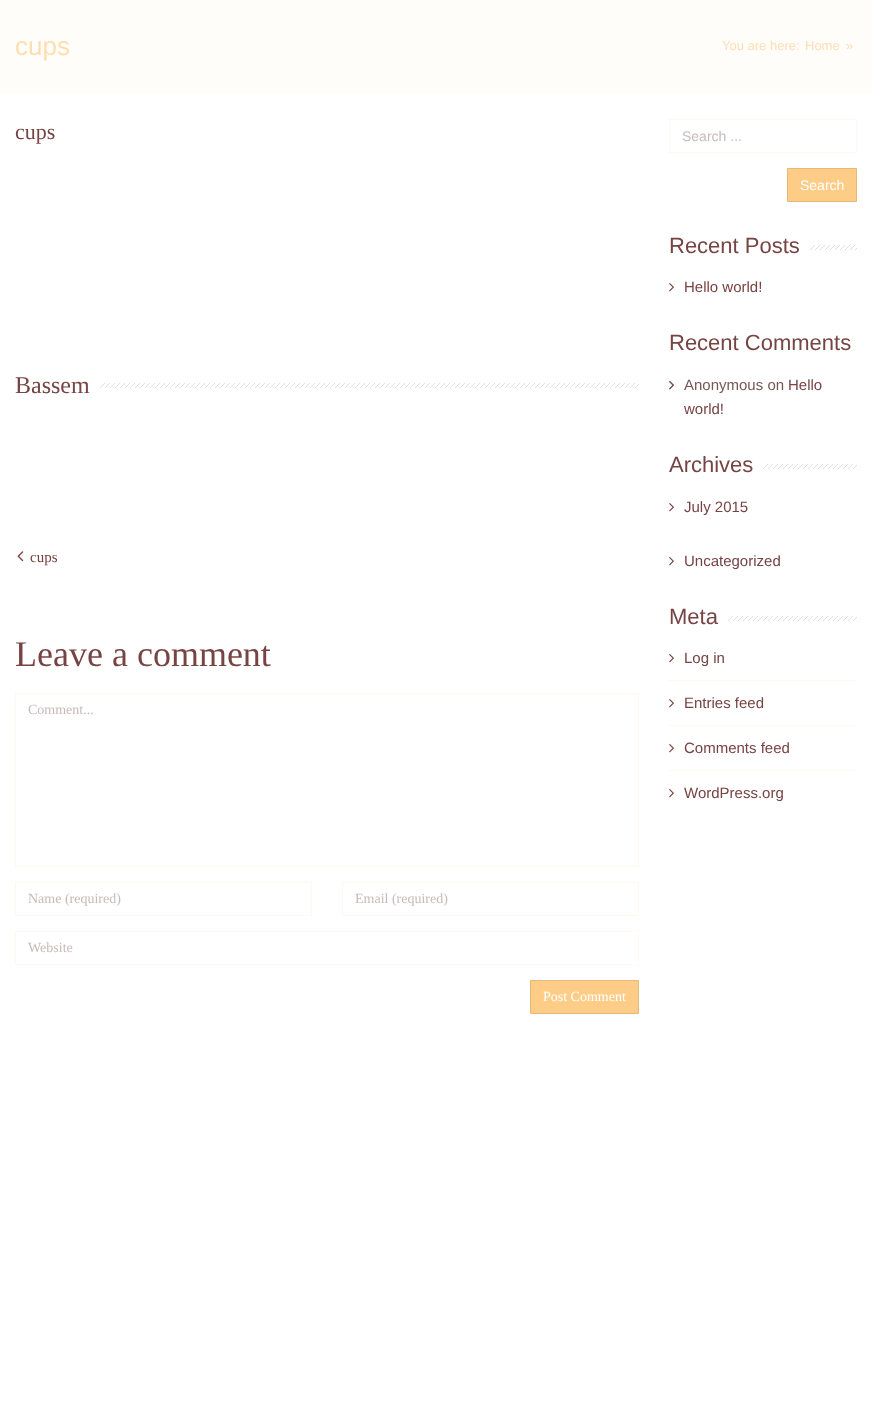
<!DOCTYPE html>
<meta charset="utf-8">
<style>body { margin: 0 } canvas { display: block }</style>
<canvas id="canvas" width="872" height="1410"></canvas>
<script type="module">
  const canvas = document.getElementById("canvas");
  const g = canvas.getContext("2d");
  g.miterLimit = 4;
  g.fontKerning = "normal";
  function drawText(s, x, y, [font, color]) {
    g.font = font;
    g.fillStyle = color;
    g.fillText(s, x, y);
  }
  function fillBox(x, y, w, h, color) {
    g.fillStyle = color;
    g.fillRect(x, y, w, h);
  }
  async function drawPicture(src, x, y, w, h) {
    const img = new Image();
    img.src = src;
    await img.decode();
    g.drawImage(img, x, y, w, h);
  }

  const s1 = ["26px Liberation Sans", "#FDDEB1"];
  const s2 = ["13px Liberation Sans", "#FDDEB1"];
  const s3 = ["22px Liberation Serif", "#774343"];
  const s4 = ["24px Liberation Serif", "#774343"];
  const s5 = ["15px Liberation Serif", "#774343"];
  const s6 = ["36px Liberation Serif", "#774343"];
  const s7 = ["14px Liberation Serif", "#C7BABA"];
  const s8 = ["14px Liberation Serif", "#FFFFFF"];
  const s9 = ["14px Liberation Sans", "#C7BABA"];
  const s10 = ["14px Liberation Sans", "#FFFFFF"];
  const s11 = ["22px Liberation Sans", "#774343"];
  const s12 = ["15px Liberation Sans", "#774343"];
  const s13 = ["15px Liberation Sans", "#775656"];

  fillBox(0, 0, 872, 1410, "#FFFFFF");
  fillBox(0, 0, 872, 94, "#FFFDFA");
  drawText("cups", 15, 55, s1);
  drawText("You are here:", 722, 50, s2);
  drawText("Home", 805, 50, s2);
  drawText("»", 846, 50, s2);
  drawText("cups", 15, 139, s3);
  drawText("Bassem", 15, 393, s4);
  await drawPicture("pic1.png", 100, 383, 539, 5);
  await drawPicture("pic2.png", 17, 551, 7, 11);
  drawText("cups", 30, 562, s5);
  drawText("Leave a comment", 15, 666, s6);
  g.strokeStyle = "#FEF9F0";
  g.strokeRect(15.5, 693.5, 623, 173);
  drawText("Comment...", 28, 714, s7);
  g.strokeRect(15.5, 882.5, 296, 33);
  drawText("Name (required)", 28, 903, s7);
  g.strokeRect(342.5, 882.5, 296, 33);
  drawText("Email (required)", 355, 903, s7);
  g.strokeRect(15.5, 931.5, 623, 33);
  drawText("Website", 28, 952, s7);
  g.fillStyle = "#FDCD88";
  g.beginPath();
  g.rect(530.5, 980.5, 108, 33);
  g.fill();
  g.strokeStyle = "#E4B97A";
  g.stroke();
  drawText("Post Comment", 543, 1001, s8);
  g.strokeStyle = "#FEF9F0";
  g.strokeRect(669.5, 119.5, 187, 33);
  drawText("Search ...", 682, 141, s9);
  g.fillStyle = "#FDCD88";
  g.beginPath();
  g.rect(787.5, 168.5, 69, 33);
  g.fill();
  g.strokeStyle = "#E4B97A";
  g.stroke();
  drawText("Search", 800, 190, s10);
  drawText("Recent Posts", 669, 253, s11);
  await drawPicture("pic3.png", 810, 245, 47, 5);
  await drawPicture("pic4.png", 669, 283, 5, 9);
  drawText("Hello world!", 684, 292, s12);
  drawText("Recent Comments", 669, 350, s11);
  await drawPicture("pic5.png", 669, 381, 5, 9);
  await drawPicture("pic6.png", 669, 381, 5, 9);
  drawText("Anonymous on", 684, 390, s13);
  drawText("Hello", 788, 390, s12);
  drawText("world!", 684, 414, s12);
  drawText("Archives", 669, 472, s11);
  await drawPicture("pic7.png", 763, 464, 94, 5);
  await drawPicture("pic4.png", 669, 503, 5, 9);
  drawText("July 2015", 684, 512, s12);
  await drawPicture("pic4.png", 669, 557, 5, 9);
  drawText("Uncategorized", 684, 566, s12);
  drawText("Meta", 669, 624, s11);
  await drawPicture("pic8.png", 728, 616, 129, 5);
  fillBox(669, 680, 188, 1, "#FEF9F0");
  await drawPicture("pic4.png", 669, 654, 5, 9);
  drawText("Log in", 684, 663, s12);
  fillBox(669, 725, 188, 1, "#FEF9F0");
  await drawPicture("pic4.png", 669, 699, 5, 9);
  drawText("Entries feed", 684, 708, s12);
  fillBox(669, 770, 188, 1, "#FEF9F0");
  await drawPicture("pic4.png", 669, 744, 5, 9);
  drawText("Comments feed", 684, 753, s12);
  await drawPicture("pic4.png", 669, 789, 5, 9);
  drawText("WordPress.org", 684, 798, s12);
</script>
